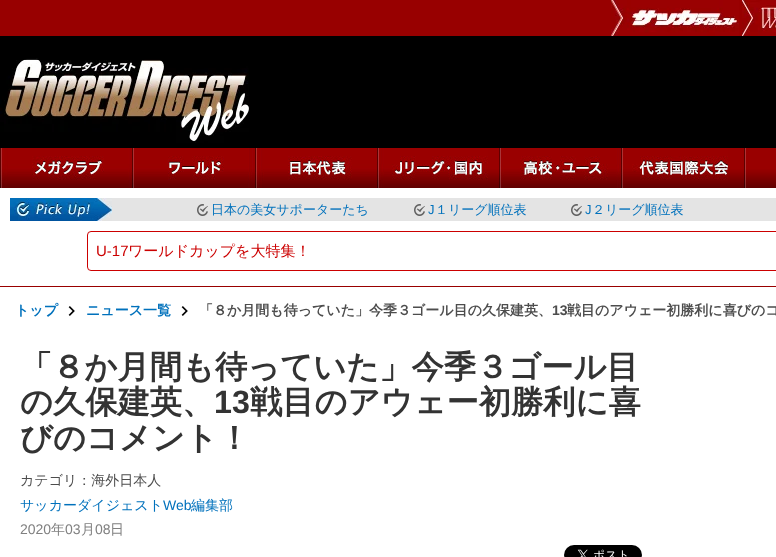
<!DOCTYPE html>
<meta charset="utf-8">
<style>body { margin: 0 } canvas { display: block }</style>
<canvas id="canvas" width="776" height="557"></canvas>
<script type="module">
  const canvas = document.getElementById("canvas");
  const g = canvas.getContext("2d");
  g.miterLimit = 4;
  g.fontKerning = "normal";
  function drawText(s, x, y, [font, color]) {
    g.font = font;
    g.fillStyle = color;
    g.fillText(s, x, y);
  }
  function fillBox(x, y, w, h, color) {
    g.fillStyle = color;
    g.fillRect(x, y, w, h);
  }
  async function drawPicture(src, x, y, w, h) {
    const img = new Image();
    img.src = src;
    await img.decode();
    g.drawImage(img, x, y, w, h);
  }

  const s1 = ["500 13px WenQuanYi Zen Hei", "#0071BC"];
  const s2 = ["13px Liberation Sans", "#0071BC"];
  const s3 = ["15px Liberation Sans", "#CC0000"];
  const s4 = ["500 15px WenQuanYi Zen Hei", "#CC0000"];
  const s5 = ["bold 14px WenQuanYi Zen Hei", "#0071BC"];
  const s6 = ["bold 14px WenQuanYi Zen Hei", "#4D4D4D"];
  const s7 = ["bold 14px Liberation Sans", "#4D4D4D"];
  const s8 = ["bold 32.25px WenQuanYi Zen Hei", "#333333"];
  const s9 = ["bold 32.25px Liberation Sans", "#333333"];
  const s10 = ["500 14px WenQuanYi Zen Hei", "#4D4D4D"];
  const s11 = ["500 14px WenQuanYi Zen Hei", "#0071BC"];
  const s12 = ["14px Liberation Sans", "#0071BC"];
  const s13 = ["14px Liberation Sans", "#808080"];
  const s14 = ["500 14px WenQuanYi Zen Hei", "#808080"];

  fillBox(0, 0, 776, 557, "#000000");
  fillBox(0, 0, 742, 36, "#980000");
  await drawPicture("pic1.png", 611, 0, 128, 36);
  await drawPicture("pic2.png", 742, 0, 34, 36);
  await drawPicture("pic3.png", 0, 58, 249, 85);
  await drawPicture("pic4.png", 253, 148, 523, 40);
  await drawPicture("pic5.png", 0, 148, 132, 40);
  await drawPicture("pic6.png", 132, 148, 121, 40);
  await drawPicture("pic7.png", 255, 148, 122, 40);
  await drawPicture("pic8.png", 377, 148, 111, 40);
  await drawPicture("pic9.png", 499, 148, 122, 40);
  await drawPicture("pic10.png", 621, 148, 107, 40);
  await drawPicture("pic11.png", 744, 148, 2, 40);
  fillBox(0, 188, 776, 369, "#FFFFFF");
  fillBox(0, 286, 776, 1, "#990000");
  await drawPicture("pic12.png", 10, 198, 102, 23);
  fillBox(112, 198, 664, 23, "#E4E4E4");
  await drawPicture("pic13.png", 197, 204, 11, 12);
  drawText("日本の美女サポーターたち", 211, 214, s1);
  await drawPicture("pic13.png", 414, 204, 11, 12);
  drawText("J", 428, 214, s2);
  drawText("１リーグ順位表", 435, 214, s1);
  await drawPicture("pic13.png", 571, 204, 11, 12);
  drawText("J", 585, 214, s2);
  drawText("２リーグ順位表", 592, 214, s1);
  g.beginPath();
  g.roundRect(87.5, 231.5, 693, 39, 3.5);
  g.strokeStyle = "#CC0000";
  g.stroke();
  drawText("U-17", 96, 256, s3);
  drawText("ワールドカップを大特集！", 128, 256, s4);
  drawText("トップ", 15, 315, s5);
  await drawPicture("pic14.png", 68, 306, 7, 10);
  drawText("ニュース一覧", 86, 315, s5);
  await drawPicture("pic14.png", 181, 306, 7, 10);
  drawText("「８か月間も待っていた」今季３ゴール目の久保建英、", 199, 315, s6);
  drawText("13", 552, 315, s7);
  drawText("戦目のアウェー初勝利に喜びのコ", 567, 315, s6);
  drawText("「８か月間も待っていた」今季３ゴール目", 20, 378, s8);
  drawText("の久保建英、", 20, 413, s8);
  drawText("13", 214, 413, s9);
  drawText("戦目のアウェー初勝利に喜", 250, 413, s8);
  drawText("びのコメント！", 20, 449, s8);
  drawText("カテゴリ：海外日本人", 20, 485, s10);
  drawText("サッカーダイジェスト", 20, 510, s11);
  drawText("Web", 163, 510, s12);
  drawText("編集部", 191, 510, s11);
  drawText("2020", 20, 534, s13);
  drawText("年", 51, 534, s14);
  drawText("03", 65, 534, s13);
  drawText("月", 81, 534, s14);
  drawText("08", 95, 534, s13);
  drawText("日", 110, 534, s14);
  await drawPicture("pic15.png", 564, 545, 78, 12);
</script>
